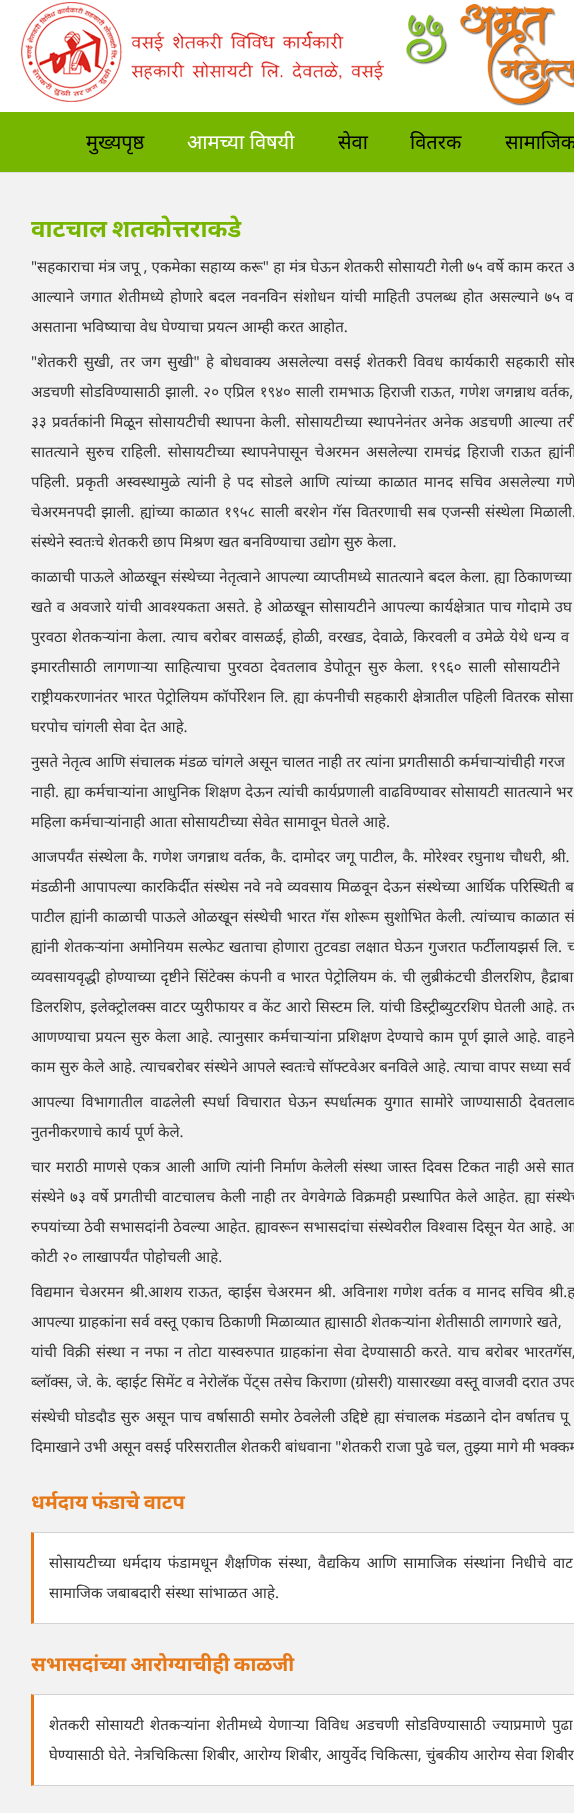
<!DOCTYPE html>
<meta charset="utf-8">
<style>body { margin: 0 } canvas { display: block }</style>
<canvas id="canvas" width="574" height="1813"></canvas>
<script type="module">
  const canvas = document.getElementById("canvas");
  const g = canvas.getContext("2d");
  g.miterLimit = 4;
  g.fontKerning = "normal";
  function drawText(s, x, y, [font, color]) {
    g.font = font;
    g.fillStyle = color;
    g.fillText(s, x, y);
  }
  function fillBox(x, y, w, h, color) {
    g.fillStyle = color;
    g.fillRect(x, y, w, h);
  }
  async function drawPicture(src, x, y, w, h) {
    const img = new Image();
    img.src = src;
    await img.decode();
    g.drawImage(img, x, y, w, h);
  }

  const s1 = ["20px Noto Sans", "#000000"];
  const s2 = ["20px Noto Sans", "#FFFFFF"];
  const s3 = ["bold 24px Noto Sans", "#77B600"];
  const s4 = ["15px Noto Sans", "#333333"];
  const s5 = ["bold 20px Noto Sans", "#E77817"];

  fillBox(0, 0, 574, 1813, "#FFFFFF");
  await drawPicture("pic1.png", 21, 2, 363, 100);
  await drawPicture("pic2.png", 406, 4, 168, 102);
  fillBox(0, 112, 574, 60, "#77B600");
  drawText("मुख्यपृष्ठ", 86, 149, s1);
  g.wordSpacing = "0.4px";
  drawText("आमच्या विषयी", 187, 149, s2);
  g.wordSpacing = "0px";
  drawText("सेवा", 338, 149, s1);
  drawText("वितरक", 410, 149, s1);
  g.wordSpacing = "0.4px";
  drawText("सामाजिक", 505, 149, s1);
  fillBox(0, 173, 574, 1640, "#F2F2F2");
  fillBox(0, 172, 574, 1, "#DDDDDD");
  g.wordSpacing = "-1px";
  drawText("वाटचाल शतकोत्तराकडे", 31, 237, s3);
  g.wordSpacing = "0.25px";
  drawText("\"सहकाराचा मंत्र जपू , एकमेका सहाय्य करू\" हा मंत्र घेऊन शेतकरी सोसायटी गेली ७५ वर्षे काम करत अ", 31, 272, s4);
  g.wordSpacing = "2.1px";
  drawText("आल्याने जगात शेतीमध्ये होणारे बदल नवनविन संशोधन यांची माहिती उपलब्ध होत असल्याने ७५", 31, 302, s4);
  drawText("व", 565, 302, s4);
  g.wordSpacing = "0.25px";
  drawText("असताना भविष्याचा वेध घेण्याचा प्रयत्न आम्ही करत आहोत.", 31, 332, s4);
  g.wordSpacing = "2.4px";
  drawText("\"शेतकरी सुखी, तर जग सुखी\" हे बोधवाक्य असलेल्या वसई शेतकरी विवध कार्यकारी सहकारी सोस", 31, 367, s4);
  g.wordSpacing = "1px";
  drawText("अडचणी सोडविण्यासाठी झाली. २० एप्रिल १९४० साली रामभाऊ हिराजी राऊत, गणेश जगन्नाथ वर्तक,", 31, 397, s4);
  g.wordSpacing = "1.5px";
  drawText("३३ प्रवर्तकांनी मिळून सोसायटीची स्थापना केली. सोसायटीच्या स्थापनेनंतर अनेक अडचणी आल्या तरी", 31, 427, s4);
  g.wordSpacing = "2.9px";
  drawText("सातत्याने सुरुच राहिली. सोसायटीच्या स्थापनेपासून चेअरमन असलेल्या रामचंद्र हिराजी राऊत ह्यांनी", 31, 457, s4);
  g.wordSpacing = "2.75px";
  drawText("पहिली. प्रकृती अस्वस्थामुळे त्यांनी हे पद सोडले आणि त्यांच्या काळात मानद सचिव असलेल्या गणे", 31, 487, s4);
  g.wordSpacing = "1.5px";
  drawText("चेअरमनपदी झाली. ह्यांच्या काळात १९५८ साली बरशेन गॅस वितरणाची सब एजन्सी संस्थेला मिळाली.", 31, 517, s4);
  g.wordSpacing = "0.25px";
  drawText("संस्थेने स्वतःचे शेतकरी छाप मिश्रण खत बनविण्याचा उद्योग सुरु केला.", 31, 547, s4);
  g.wordSpacing = "0.75px";
  drawText("काळाची पाऊले ओळखून संस्थेच्या नेतृत्वाने आपल्या व्याप्तीमध्ये सातत्याने बदल केला. ह्या ठिकाणच्या", 31, 582, s4);
  g.wordSpacing = "1.1px";
  drawText("खते व अवजारे यांची आवश्यकता असते. हे ओळखून सोसायटीने आपल्या कार्यक्षेत्रात पाच गोदामे उघ", 31, 612, s4);
  g.wordSpacing = "1.3px";
  drawText("पुरवठा शेतकऱ्यांना केला. त्याच बरोबर वासळई, होळी, वरखड, देवाळे, किरवली व उमेळे येथे धन्य व", 31, 642, s4);
  g.wordSpacing = "2.9px";
  drawText("इमारतीसाठी लागणाऱ्या साहित्याचा पुरवठा देवतलाव डेपोतून सुरु केला. १९६० साली सोसायटीने", 31, 672, s4);
  g.wordSpacing = "0.9px";
  drawText("राष्ट्रीयकरणानंतर भारत पेट्रोलियम कॉर्पोरेशन लि. ह्या कंपनीची सहकारी क्षेत्रातील पहिली वितरक सोसा", 31, 702, s4);
  g.wordSpacing = "0.5px";
  drawText("घरपोच चांगली सेवा देत आहे.", 31, 732, s4);
  g.wordSpacing = "0.25px";
  drawText("नुसते नेतृत्व आणि संचालक मंडळ चांगले असून चालत नाही तर त्यांना प्रगतीसाठी कर्मचाऱ्यांचीही गरज", 31, 767, s4);
  g.wordSpacing = "1px";
  drawText("नाही. ह्या कर्मचाऱ्यांना", 31, 797, s4);
  g.wordSpacing = "0.75px";
  drawText("आधुनिक शिक्षण देऊन त्यांची कार्यप्रणाली वाढविण्यावर सोसायटी सातत्याने भर", 152, 797, s4);
  g.wordSpacing = "0.25px";
  drawText("महिला कर्मचाऱ्यांनाही आता सोसायटीच्या सेवेत सामावून घेतले आहे.", 31, 827, s4);
  g.wordSpacing = "1px";
  drawText("आजपर्यंत संस्थेला कै. गणेश जगन्नाथ वर्तक, कै. दामोदर जगू पाटील, कै. मोरेश्वर रघुनाथ चौधरी, श्री.", 31, 862, s4);
  g.wordSpacing = "1.1px";
  drawText("मंडळीनी आपापल्या कारकिर्दीत संस्थेस नवे नवे व्यवसाय मिळवून देऊन संस्थेच्या आर्थिक परिस्थिती ब", 31, 892, s4);
  g.wordSpacing = "1px";
  drawText("पाटील ह्यांनी काळाची पाऊले ओळखून संस्थेची भारत गॅस शोरूम सुशोभित केली. त्यांच्याच काळात सं", 31, 922, s4);
  g.wordSpacing = "1.25px";
  drawText("ह्यांनी शेतकऱ्यांना अमोनियम सल्फेट खताचा होणारा तुटवडा लक्षात घेऊन गुजरात फर्टीलायझर्स लि. च", 31, 952, s4);
  drawText("व्यवसायवृद्धी होण्याच्या दृष्टीने सिंटेक्स कंपनी व भारत पेट्रोलियम कं. ची लुब्रीकंटची डीलरशिप, हैद्राबा", 31, 982, s4);
  g.wordSpacing = "0.5px";
  drawText("डिलरशिप, इलेक्ट्रोलक्स वाटर प्युरीफायर व", 31, 1012, s4);
  g.wordSpacing = "0.75px";
  drawText("केंट आरो सिस्टम लि. यांची डिस्ट्रीब्युटरशिप घेतली आहे. तस", 262, 1012, s4);
  g.wordSpacing = "1.25px";
  drawText("आणण्याचा प्रयत्न सुरु केला आहे. त्यानुसार कर्मचाऱ्यांना प्रशिक्षण देण्याचे काम पूर्ण झाले आहे. वाहने", 31, 1042, s4);
  g.wordSpacing = "0.25px";
  drawText("काम सुरु केले आहे. त्याचबरोबर संस्थेने आपले स्वतःचे सॉफ्टवेअर बनविले आहे. त्याचा वापर सध्या सर्व", 31, 1072, s4);
  g.wordSpacing = "3.25px";
  drawText("आपल्या विभागातील वाढलेली स्पर्धा विचारात घेऊन स्पर्धात्मक युगात सामोरे जाण्यासाठी देवतलाव", 31, 1107, s4);
  g.wordSpacing = "0.25px";
  drawText("नुतनीकरणाचे कार्य पूर्ण केले.", 31, 1137, s4);
  g.wordSpacing = "1.5px";
  drawText("चार मराठी माणसे एकत्र आली आणि त्यांनी निर्माण केलेली संस्था जास्त दिवस टिकत नाही असे सात", 31, 1172, s4);
  g.wordSpacing = "1.6px";
  drawText("संस्थेने ७३ वर्षे प्रगतीची वाटचालच केली नाही तर वेगवेगळे विक्रमही प्रस्थापित केले आहेत. ह्या संस्थेच", 31, 1202, s4);
  g.wordSpacing = "0.75px";
  drawText("रुपयांच्या ठेवी सभासदांनी ठेवल्या आहेत. ह्यावरून सभासदांचा संस्थेवरील विश्वास दिसून येत आहे. आ", 31, 1232, s4);
  g.wordSpacing = "0.5px";
  drawText("कोटी २० लाखापर्यंत पोहोचली आहे.", 31, 1262, s4);
  g.wordSpacing = "1.75px";
  drawText("विद्यमान चेअरमन श्री.आशय राऊत, व्हाईस चेअरमन श्री. अविनाश गणेश वर्तक व मानद सचिव श्री.ह", 31, 1297, s4);
  g.wordSpacing = "0.5px";
  drawText("आपल्या ग्राहकांना सर्व वस्तू एकाच ठिकाणी मिळाव्यात ह्यासाठी शेतकऱ्यांना शेतीसाठी लागणारे खते,", 31, 1327, s4);
  g.wordSpacing = "1.75px";
  drawText("यांची विक्री संस्था न नफा न तोटा यास्वरुपात ग्राहकांना सेवा देण्यासाठी करते. याच बरोबर भारतगॅस,", 31, 1357, s4);
  g.wordSpacing = "0.4px";
  drawText("ब्लॉक्स, जे. के. व्हाईट सिमेंट व नेरोलॅक पेंट्स तसेच किराणा (ग्रोसरी) यासारख्या वस्तू वाजवी दरात उपल", 31, 1387, s4);
  g.wordSpacing = "1.25px";
  drawText("संस्थेची घोडदौड सुरु असून पाच वर्षासाठी समोर ठेवलेली उद्दिष्टे ह्या संचालक मंडळाने दोन वर्षातच पू", 31, 1422, s4);
  g.wordSpacing = "0.25px";
  drawText("दिमाखाने उभी असून वसई परिसरातील शेतकरी बांधवाना \"शेतकरी राजा पुढे चल, तुझ्या मागे मी भक्कम", 31, 1452, s4);
  g.wordSpacing = "-1px";
  drawText("धर्मदाय फंडाचे वाटप", 31, 1509, s5);
  fillBox(34, 1533, 540, 90, "#FFFFFF");
  g.fillStyle = "#D3D3D3";
  g.beginPath();
  g.moveTo(31, 1532);
  g.lineTo(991, 1532);
  g.lineTo(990, 1533);
  g.lineTo(34, 1533);
  g.closePath();
  g.fill();
  g.beginPath();
  g.moveTo(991, 1624);
  g.lineTo(31, 1624);
  g.lineTo(34, 1623);
  g.lineTo(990, 1623);
  g.closePath();
  g.fill();
  g.fillStyle = "#E77817";
  g.beginPath();
  g.moveTo(31, 1624);
  g.lineTo(31, 1532);
  g.lineTo(34, 1533);
  g.lineTo(34, 1623);
  g.closePath();
  g.fill();
  g.wordSpacing = "2.75px";
  drawText("सोसायटीच्या धर्मदाय फंडामधून शैक्षणिक संस्था, वैद्यकिय आणि सामाजिक संस्थांना निधीचे वाट", 49, 1568, s4);
  g.wordSpacing = "0.5px";
  drawText("सामाजिक जबाबदारी संस्था सांभाळत आहे.", 49, 1598, s4);
  g.wordSpacing = "-1px";
  drawText("सभासदांच्या आरोग्याचीही काळजी", 31, 1671, s5);
  fillBox(34, 1695, 540, 90, "#FFFFFF");
  g.fillStyle = "#D3D3D3";
  g.beginPath();
  g.moveTo(31, 1694);
  g.lineTo(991, 1694);
  g.lineTo(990, 1695);
  g.lineTo(34, 1695);
  g.closePath();
  g.fill();
  g.beginPath();
  g.moveTo(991, 1786);
  g.lineTo(31, 1786);
  g.lineTo(34, 1785);
  g.lineTo(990, 1785);
  g.closePath();
  g.fill();
  g.fillStyle = "#E77817";
  g.beginPath();
  g.moveTo(31, 1786);
  g.lineTo(31, 1694);
  g.lineTo(34, 1695);
  g.lineTo(34, 1785);
  g.closePath();
  g.fill();
  g.wordSpacing = "2.4px";
  drawText("शेतकरी सोसायटी शेतकऱ्यांना शेतीमध्ये येणाऱ्या विविध अडचणी सोडविण्यासाठी ज्याप्रमाणे पुढा", 49, 1730, s4);
  g.wordSpacing = "0.5px";
  drawText("घेण्यासाठी घेते. नेत्रचिकित्सा शिबीर,", 49, 1760, s4);
  g.wordSpacing = "0.25px";
  drawText("आरोग्य शिबीर, आयुर्वेद चिकित्सा, चुंबकीय आरोग्य सेवा शिबीर", 243, 1760, s4);
</script>
